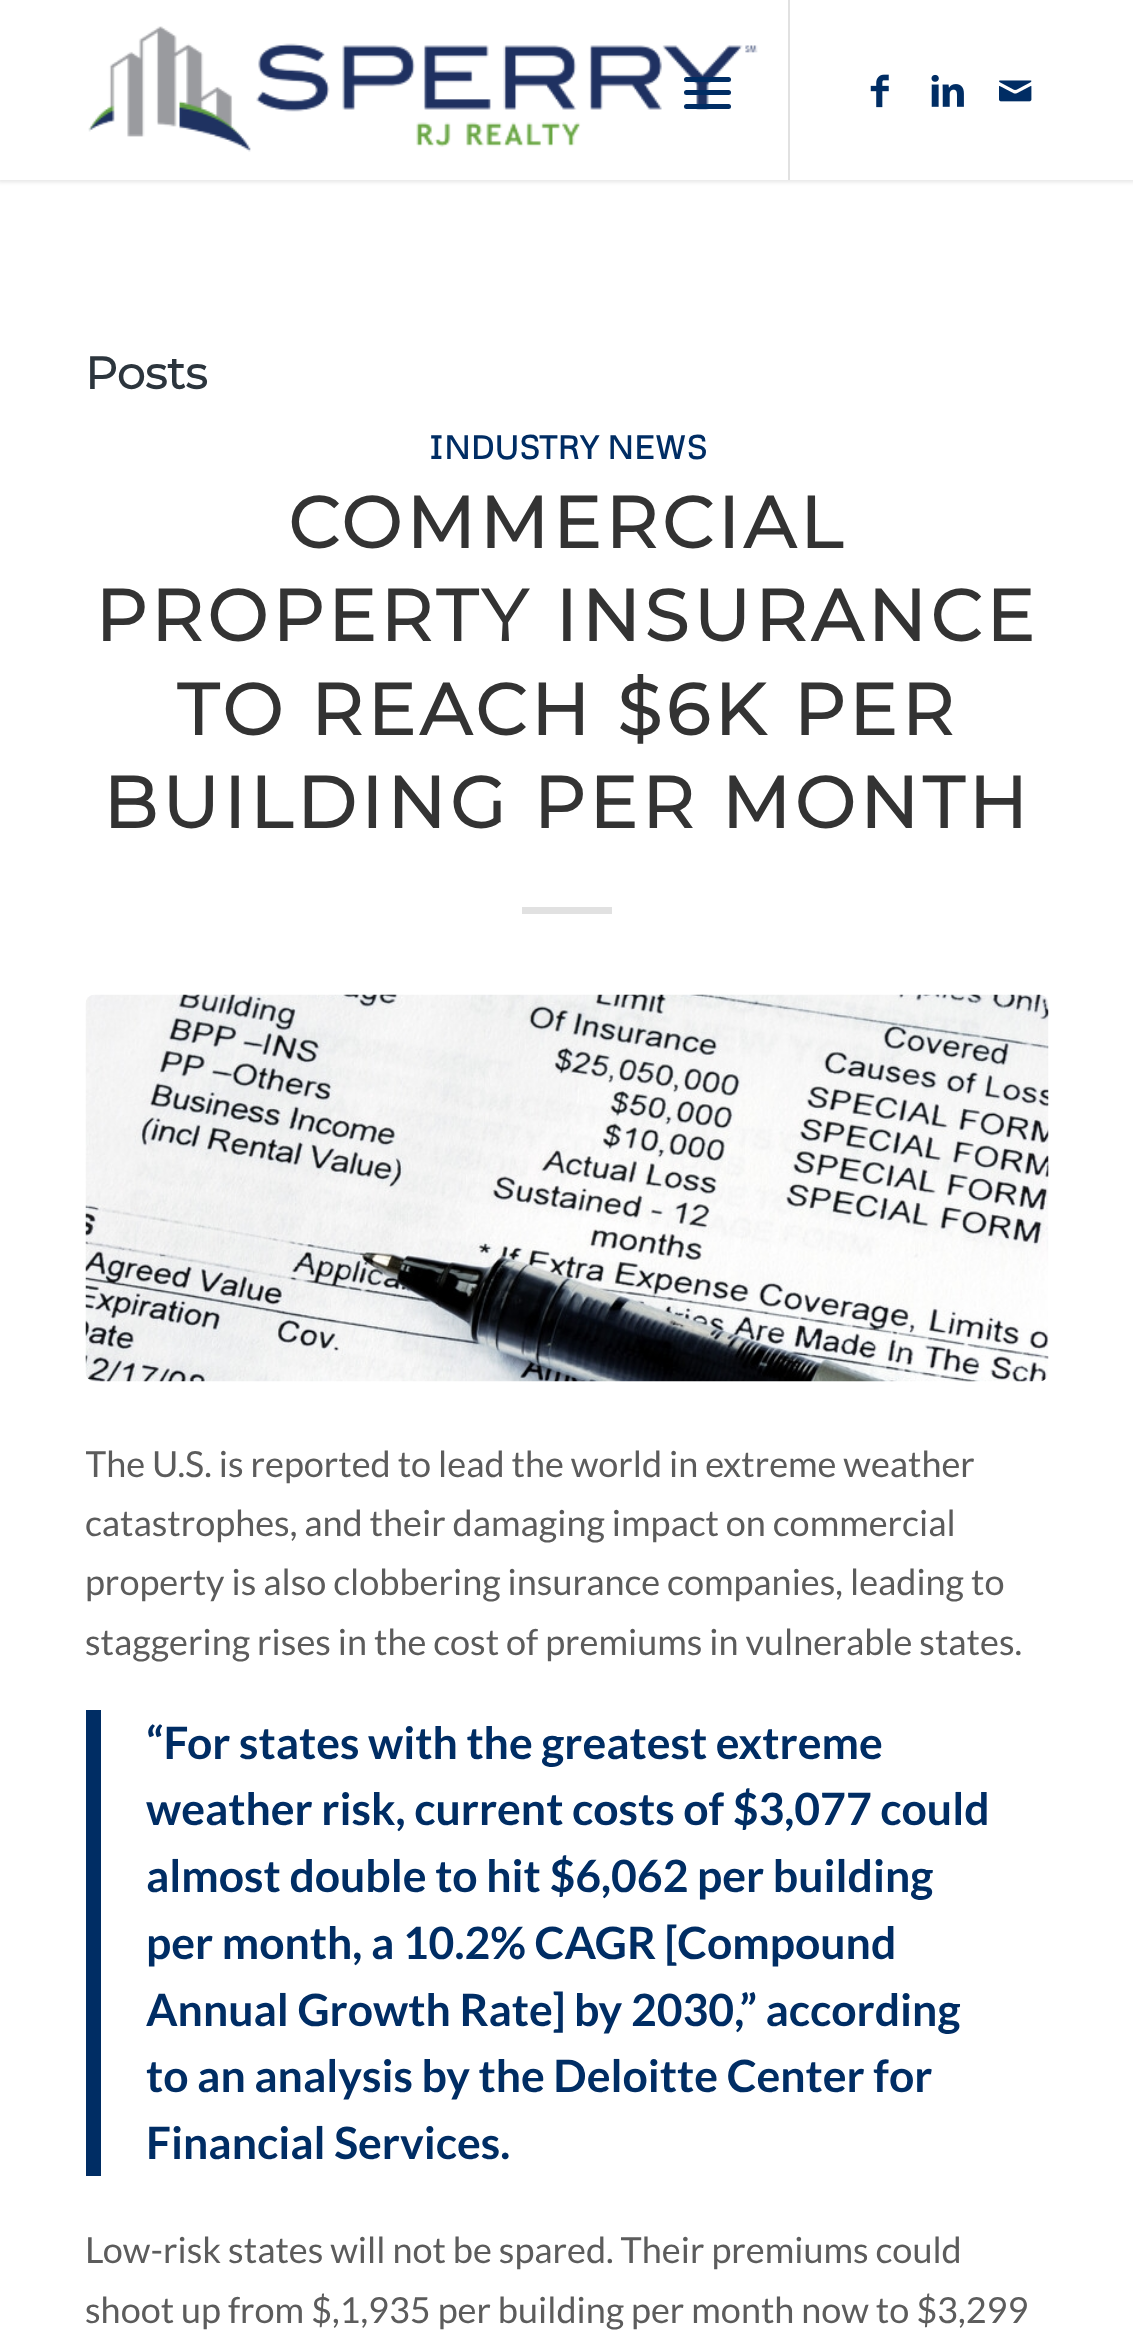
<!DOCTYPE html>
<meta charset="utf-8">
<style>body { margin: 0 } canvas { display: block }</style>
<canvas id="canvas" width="1133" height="2346"></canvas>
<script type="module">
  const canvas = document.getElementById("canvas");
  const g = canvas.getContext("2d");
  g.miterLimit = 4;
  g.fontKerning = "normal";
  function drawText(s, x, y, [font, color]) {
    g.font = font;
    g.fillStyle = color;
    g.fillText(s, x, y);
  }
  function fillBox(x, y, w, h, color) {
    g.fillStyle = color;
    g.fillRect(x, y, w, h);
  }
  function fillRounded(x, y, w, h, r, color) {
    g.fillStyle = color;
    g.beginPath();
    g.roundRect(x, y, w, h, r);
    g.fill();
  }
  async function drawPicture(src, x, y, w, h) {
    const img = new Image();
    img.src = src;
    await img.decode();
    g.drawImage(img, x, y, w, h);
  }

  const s1 = ["bold 45px Montserrat", "#2C353D"];
  const s2 = ["bold 32.5px Metrophobic", "#002D64"];
  const s3 = ["bold 72px Montserrat", "#333333"];
  const s4 = ["36px Lato", "#5C5C5C"];
  const s5 = ["bold 44.5px Lato", "#002D64"];

  fillBox(0, 0, 1133, 2346, "#FFFFFF");
  g.fillStyle = "rgba(0, 0, 0, 0.1)";
  g.filter = "blur(2px)";
  g.beginPath();
  g.rect(-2, -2, 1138, 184);
  g.fill();
  g.filter = "none";
  fillBox(0, 0, 1133, 180, "#FFFFFF");
  await drawPicture("pic1.png", 88, 26, 670, 126);
  fillBox(788, 0, 2, 180, "#E1E1E1");
  fillRounded(684, 90, 47, 5, 2.5, "#002D64");
  fillRounded(684, 77, 47, 5, 2.5, "#002D64");
  fillRounded(684, 104, 47, 5, 2.5, "#002D64");
  await drawPicture("pic2.png", 870, 74, 19, 34);
  await drawPicture("pic3.png", 931, 74, 33, 33);
  await drawPicture("pic4.png", 999, 80, 33, 22);
  drawText("Posts", 85, 389, s1);
  drawText("INDUSTRY NEWS", 428, 459, s2);
  g.letterSpacing = "4.5px";
  drawText("COMMERCIAL", 288, 548, s3);
  drawText("PROPERTY INSURANCE", 95, 641, s3);
  drawText("TO REACH $6K PER", 177, 735, s3);
  drawText("BUILDING PER MONTH", 103, 828, s3);
  fillBox(522, 907, 90, 7, "#E1E1E1");
  await drawPicture("pic5.png", 85, 994, 964, 388);
  g.save();
  g.beginPath();
  g.rect(86, 416, 963, 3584);
  g.clip();
  g.letterSpacing = "0px";
  drawText("The U.S. is reported to lead the world in extreme weather", 85, 1477, s4);
  g.restore();
  g.letterSpacing = "0px";
  drawText("catastrophes, and their damaging impact on commercial", 85, 1536, s4);
  drawText("property is also clobbering insurance companies, leading to", 85, 1595, s4);
  drawText("staggering rises in the cost of premiums in vulnerable states.", 85, 1655, s4);
  fillBox(86, 1710, 15, 466, "#002D64");
  drawText("“For states with the greatest extreme", 146, 1759, s5);
  drawText("weather risk, current costs of $3,077 could", 146, 1825, s5);
  drawText("almost double to hit $6,062 per building", 146, 1892, s5);
  drawText("per month, a 10.2% CAGR [Compound", 146, 1959, s5);
  drawText("Annual Growth Rate] by 2030,” according", 146, 2026, s5);
  drawText("to an analysis by the Deloitte Center for", 146, 2092, s5);
  drawText("Financial Services.", 146, 2159, s5);
  drawText("Low-risk states will not be spared. Their premiums could", 85, 2263, s4);
  drawText("shoot up from $,1,935 per building per month now to $3,299", 85, 2323, s4);
</script>
